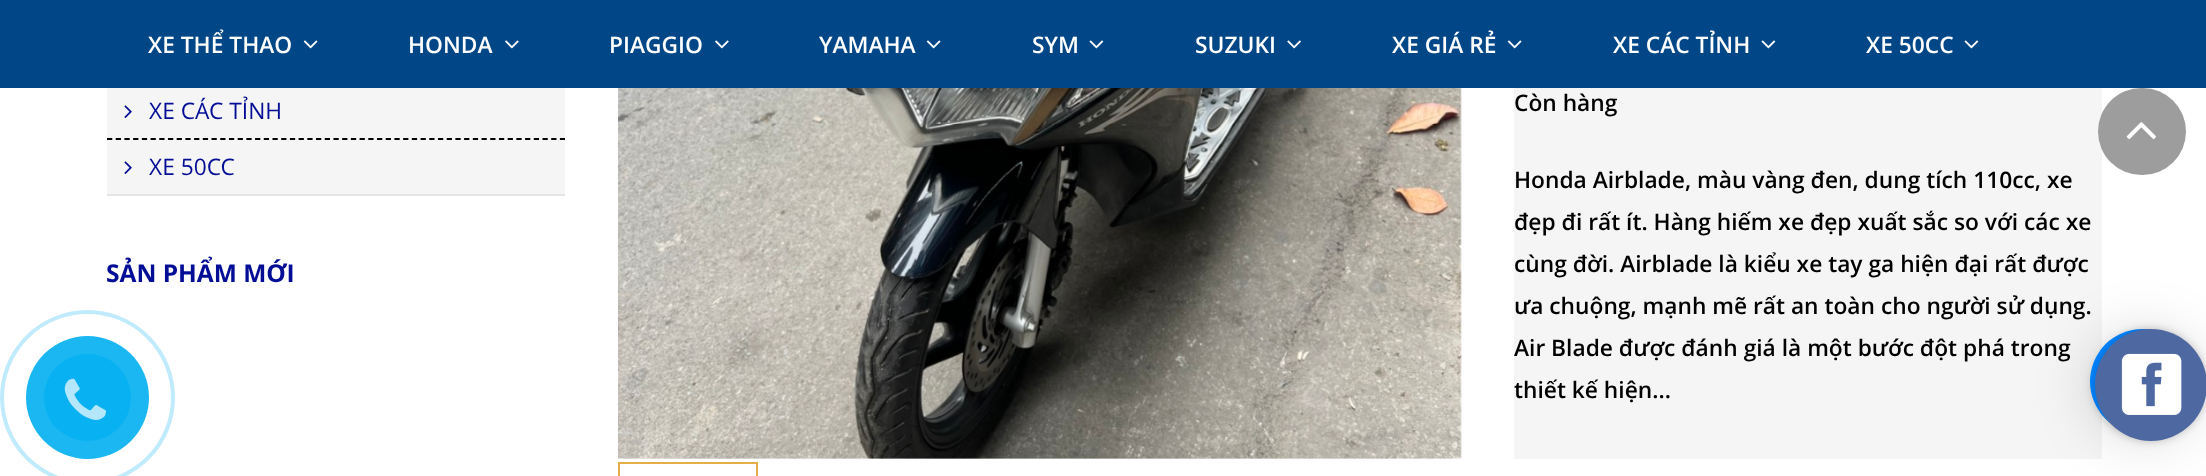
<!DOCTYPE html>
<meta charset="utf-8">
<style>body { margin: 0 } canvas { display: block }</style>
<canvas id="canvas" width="2206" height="476"></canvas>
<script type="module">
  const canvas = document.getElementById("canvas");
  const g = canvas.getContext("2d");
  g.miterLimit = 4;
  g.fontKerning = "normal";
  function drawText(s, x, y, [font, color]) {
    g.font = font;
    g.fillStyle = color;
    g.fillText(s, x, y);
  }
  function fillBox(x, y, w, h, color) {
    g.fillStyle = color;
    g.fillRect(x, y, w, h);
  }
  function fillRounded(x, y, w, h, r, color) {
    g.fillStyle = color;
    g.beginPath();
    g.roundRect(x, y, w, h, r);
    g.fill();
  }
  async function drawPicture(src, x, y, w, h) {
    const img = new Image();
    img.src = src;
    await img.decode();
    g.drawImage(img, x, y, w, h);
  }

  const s1 = ["600 22.75px Open Sans", "#FFFFFF"];
  const s2 = ["22.75px Open Sans", "#030D96"];
  const s3 = ["bold 24.5px Open Sans", "#030D96"];
  const s4 = ["600 22.75px Open Sans", "#000000"];

  fillBox(0, 0, 2206, 476, "#FFFFFF");
  fillBox(0, 0, 2206, 88, "#014686");
  drawText("XE THỂ THAO", 148, 53, s1);
  await drawPicture("pic1.png", 303, 40, 15, 9);
  drawText("HONDA", 408, 53, s1);
  await drawPicture("pic2.png", 505, 40, 14, 9);
  drawText("PIAGGIO", 609, 53, s1);
  await drawPicture("pic2.png", 715, 40, 14, 9);
  drawText("YAMAHA", 819, 53, s1);
  await drawPicture("pic1.png", 926, 40, 15, 9);
  drawText("SYM", 1032, 53, s1);
  await drawPicture("pic3.png", 1089, 40, 15, 9);
  drawText("SUZUKI", 1195, 53, s1);
  await drawPicture("pic4.png", 1287, 40, 14, 9);
  drawText("XE GIÁ RẺ", 1392, 53, s1);
  await drawPicture("pic1.png", 1507, 40, 15, 9);
  drawText("XE CÁC TỈNH", 1613, 53, s1);
  await drawPicture("pic3.png", 1761, 40, 15, 9);
  drawText("XE 50CC", 1866, 53, s1);
  await drawPicture("pic3.png", 1964, 40, 15, 9);
  g.beginPath();
  g.arc(87.5, 397.5, 85.5, 0, Math.PI * 2);
  g.strokeStyle = "#BFEBFC";
  g.lineWidth = 4;
  g.stroke();
  g.fillStyle = "#1AB7F3";
  g.beginPath();
  g.arc(87.5, 397.5, 61.5, 0, Math.PI * 2);
  g.fill();
  g.fillStyle = "#08B1F2";
  g.beginPath();
  g.arc(87.5, 397.5, 43.5, 0, Math.PI * 2);
  g.fill();
  await drawPicture("pic5.png", 64, 378, 42, 42);
  fillBox(107, 88, 458, 106, "#F5F5F5");
  fillBox(107, 194, 458, 2, "#E5E5E5");
  g.beginPath();
  g.moveTo(107, 139);
  g.lineTo(565, 139);
  g.strokeStyle = "#000000";
  g.lineWidth = 1.8;
  g.setLineDash([5.25, 3.46]);
  g.stroke();
  await drawPicture("pic6.png", 124, 105, 8, 13);
  drawText("XE CÁC TỈNH", 149, 119, s2);
  await drawPicture("pic6.png", 124, 161, 8, 13);
  drawText("XE 50CC", 149, 175, s2);
  drawText("SẢN PHẨM MỚI", 106, 282, s3);
  await drawPicture("pic7.png", 618, 88, 844, 371);
  g.strokeStyle = "#E6AE48";
  g.lineWidth = 2;
  g.setLineDash([]);
  g.strokeRect(619, 463, 138, 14);
  fillBox(1514, 88, 588, 371, "#F5F5F5");
  drawText("Còn hàng", 1514, 111, s4);
  drawText("Honda Airblade, màu vàng đen, dung tích 110cc, xe", 1514, 188, s4);
  drawText("đẹp đi rất ít. Hàng hiếm xe đẹp xuất sắc so với các xe", 1514, 230, s4);
  drawText("cùng đời. Airblade là kiểu xe tay ga hiện đại rất được", 1514, 272, s4);
  drawText("ưa chuộng, mạnh mẽ rất an toàn cho người sử dụng.", 1514, 314, s4);
  drawText("Air Blade được đánh giá là một bước đột phá trong", 1514, 356, s4);
  drawText("thiết kế hiện...", 1514, 398, s4);
  g.fillStyle = "rgba(0, 0, 0, 0.16)";
  g.filter = "blur(28px)";
  g.beginPath();
  g.roundRect(2090, 333, 105, 105, 52.5);
  g.fill();
  g.filter = "none";
  g.fillStyle = "rgba(0, 0, 0, 0.06)";
  g.filter = "blur(5px)";
  g.beginPath();
  g.roundRect(2090, 331, 105, 105, 52.5);
  g.fill();
  g.filter = "none";
  g.fillStyle = "#0084FF";
  g.beginPath();
  g.arc(2142.5, 381.5, 52.5, 0, Math.PI * 2);
  g.fill();
  g.save();
  g.beginPath();
  g.roundRect(2090, 329, 105, 105, 52.5);
  g.clip();
  fillBox(2100, 340, 18, 84, "#0084FF");
  g.restore();
  fillRounded(2098, 88, 88, 87, 43.5, "#9D9D9D");
  await drawPicture("pic8.png", 2126, 122, 30, 18);
  g.fillStyle = "rgba(0, 0, 0, 0.2)";
  g.filter = "blur(4.5px)";
  g.beginPath();
  g.roundRect(2095, 329, 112, 112, 56);
  g.fill();
  g.filter = "none";
  g.fillStyle = "#4E69A2";
  g.beginPath();
  g.arc(2151, 385, 56, 0, Math.PI * 2);
  g.fill();
  await drawPicture("pic9.png", 2121, 353, 61, 62);
</script>
